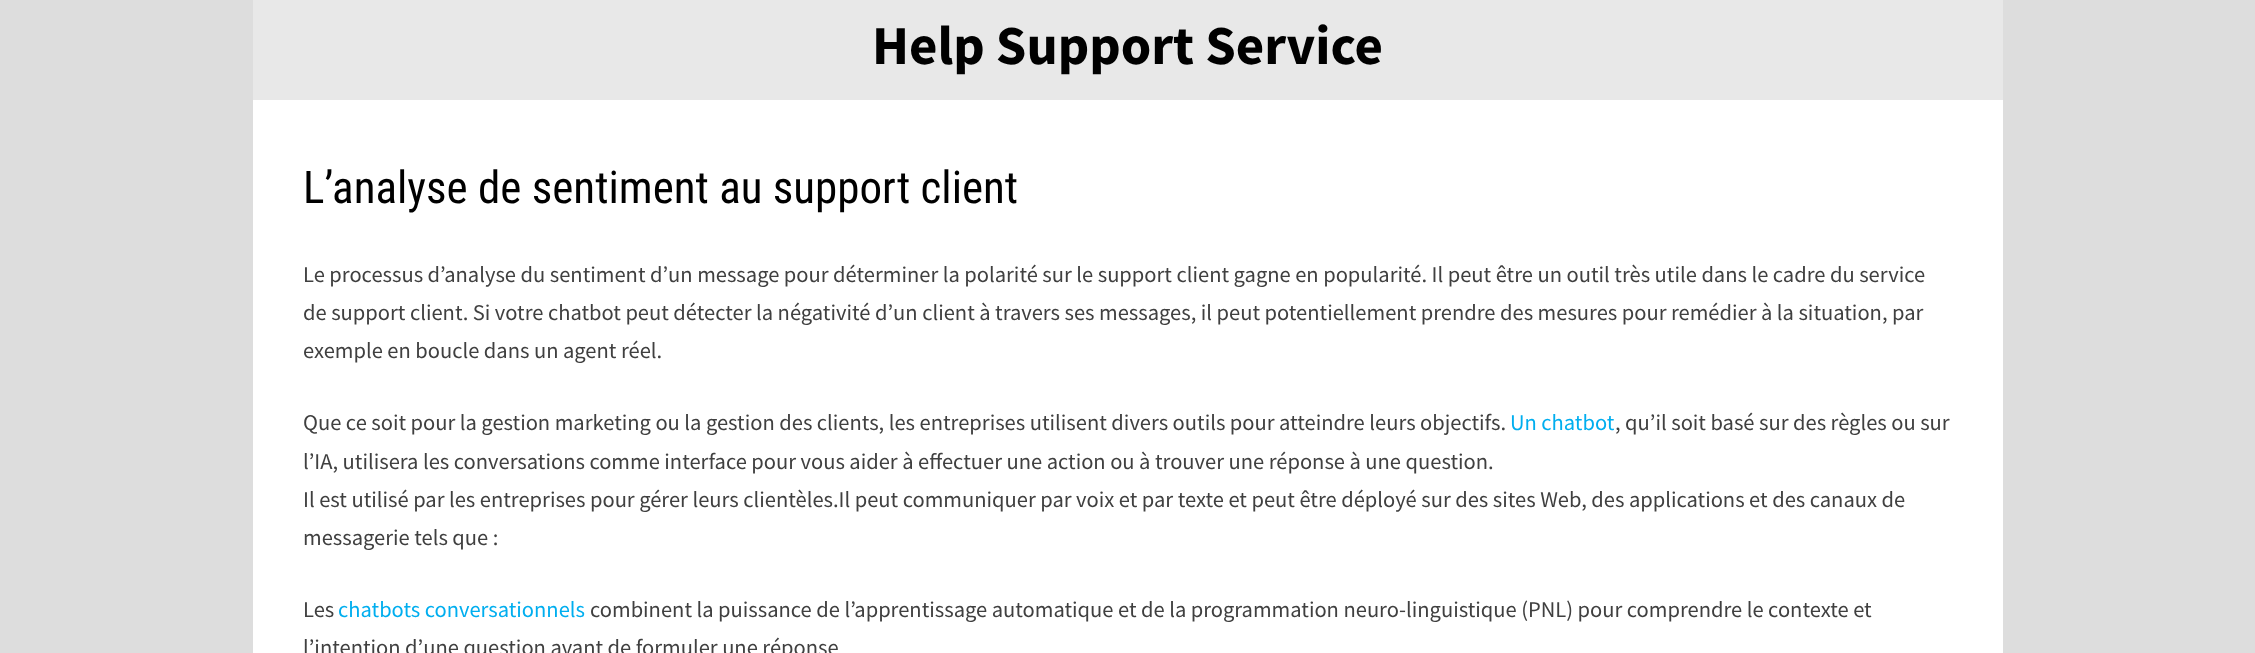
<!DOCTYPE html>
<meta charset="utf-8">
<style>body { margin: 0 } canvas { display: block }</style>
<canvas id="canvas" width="2255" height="653"></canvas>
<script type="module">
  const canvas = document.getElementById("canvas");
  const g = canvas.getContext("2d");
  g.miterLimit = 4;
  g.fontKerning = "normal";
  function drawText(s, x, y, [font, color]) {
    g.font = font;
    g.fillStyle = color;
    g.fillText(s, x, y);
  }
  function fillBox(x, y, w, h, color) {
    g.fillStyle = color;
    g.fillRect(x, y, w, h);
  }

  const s1 = ["bold 55px Source Sans Pro", "#000000"];
  const s2 = ["45px Roboto Condensed", "#000000"];
  const s3 = ["22.5px Source Sans Pro", "#404040"];
  const s4 = ["22.5px Source Sans Pro", "#00AEEF"];

  fillBox(0, 0, 2255, 653, "#DDDDDD");
  fillBox(253, 100, 1750, 553, "#FFFFFF");
  fillBox(253, 0, 1750, 100, "#E8E8E8");
  drawText("Help Support Service", 872, 64, s1);
  drawText("L’analyse de sentiment au support client", 303, 203, s2);
  drawText("Le processus d’analyse du sentiment d’un message pour déterminer la polarité sur le support client gagne en popularité. Il peut être un outil très utile dans le cadre du service", 303, 282, s3);
  drawText("de support client. Si votre chatbot peut détecter la négativité d’un client à travers ses messages, il peut potentiellement prendre des mesures pour remédier à la situation, par", 303, 320, s3);
  drawText("exemple en boucle dans un agent réel.", 303, 358, s3);
  drawText("Que ce soit pour la gestion marketing ou la gestion des clients, les entreprises utilisent divers outils pour atteindre leurs objectifs.", 303, 430, s3);
  drawText("Un chatbot", 1510, 430, s4);
  drawText(", qu’il soit basé sur des règles ou sur", 1615, 430, s3);
  drawText("l’IA, utilisera les conversations comme interface pour vous aider à effectuer une action ou à trouver une réponse à une question.", 303, 469, s3);
  drawText("Il est utilisé par les entreprises pour gérer leurs clientèles.Il peut communiquer par voix et par texte et peut être déployé sur des sites Web, des applications et des canaux de", 303, 507, s3);
  drawText("messagerie tels que :", 303, 545, s3);
  drawText("Les", 303, 617, s3);
  drawText("chatbots conversationnels", 338, 617, s4);
  drawText("combinent la puissance de l’apprentissage automatique et de la programmation neuro-linguistique (PNL) pour comprendre le contexte et", 590, 617, s3);
  drawText("l’intention d’une question avant de formuler une réponse", 303, 655, s3);
</script>
